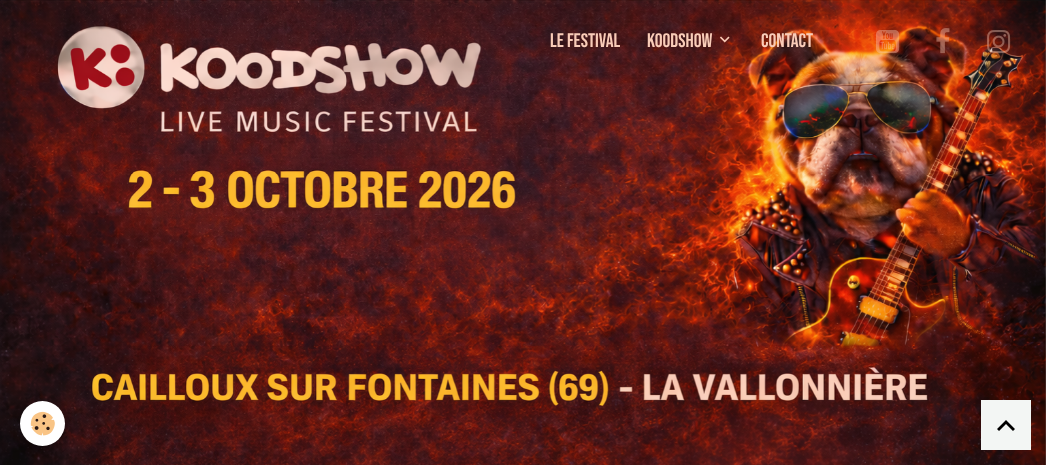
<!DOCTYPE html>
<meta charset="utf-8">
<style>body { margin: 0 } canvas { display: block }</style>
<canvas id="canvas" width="1046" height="465"></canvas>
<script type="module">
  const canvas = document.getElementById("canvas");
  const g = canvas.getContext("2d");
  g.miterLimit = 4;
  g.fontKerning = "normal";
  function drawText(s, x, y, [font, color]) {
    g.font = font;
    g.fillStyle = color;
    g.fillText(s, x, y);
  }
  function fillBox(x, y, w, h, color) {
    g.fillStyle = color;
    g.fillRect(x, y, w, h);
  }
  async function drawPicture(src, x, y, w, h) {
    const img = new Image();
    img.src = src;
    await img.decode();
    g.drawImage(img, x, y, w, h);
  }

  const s1 = ["19.5px Bebas Neue", "#F9CCB8"];

  fillBox(0, 0, 1046, 465, "#FFFFFF");
  await drawPicture("pic1.png", 0, 0, 1046, 465);
  drawText("LE FESTIVAL", 550, 47, s1);
  drawText("KOODSHOW", 647, 47, s1);
  await drawPicture("pic2.png", 720, 36, 10, 7);
  drawText("CONTACT", 761, 47, s1);
  await drawPicture("pic3.png", 876, 30, 24, 24);
  await drawPicture("pic4.png", 936, 28, 14, 26);
  await drawPicture("pic5.png", 987, 30, 24, 24);
  g.fillStyle = "rgba(0, 0, 0, 0.24)";
  g.filter = "blur(5px)";
  g.beginPath();
  g.roundRect(20, 404, 45, 45, 22.5);
  g.fill();
  g.filter = "none";
  g.fillStyle = "#FFFFFF";
  g.beginPath();
  g.arc(42.5, 423.5, 22.5, 0, Math.PI * 2);
  g.fill();
  await drawPicture("pic6.png", 30, 411, 25, 25);
  fillBox(981, 400, 50, 50, "#F3F6F4");
  g.fillStyle = "#000000";
  g.beginPath();
  g.moveTo(1006, 420);
  g.lineTo(1015, 429);
  g.lineTo(1013, 431);
  g.lineTo(1006, 424);
  g.lineTo(999, 431);
  g.lineTo(997, 429);
  g.closePath();
  g.fill();
</script>
